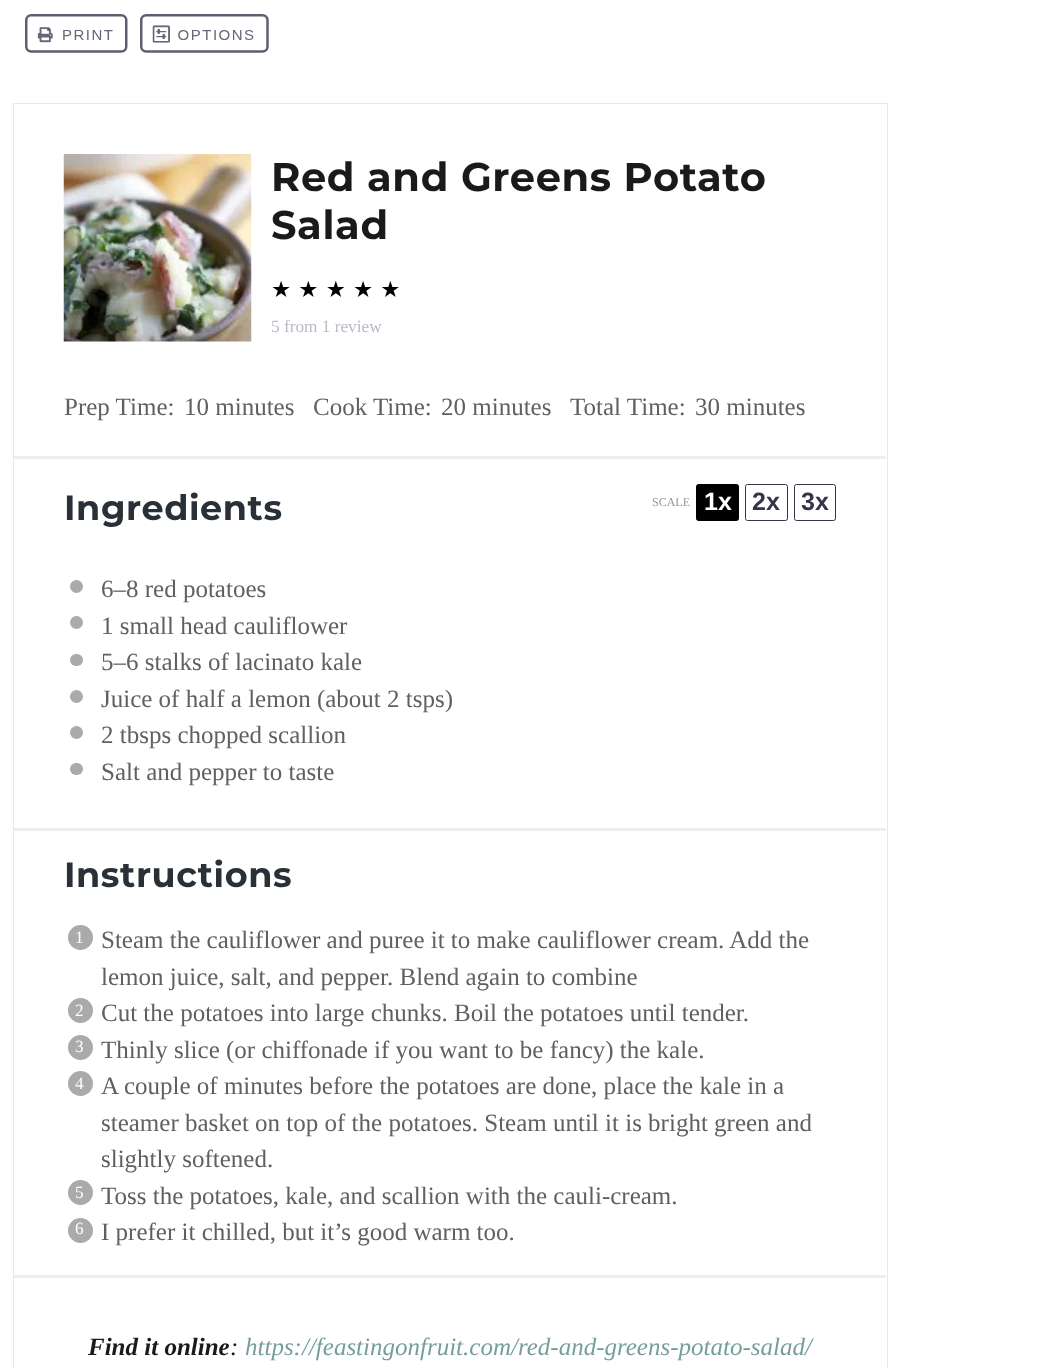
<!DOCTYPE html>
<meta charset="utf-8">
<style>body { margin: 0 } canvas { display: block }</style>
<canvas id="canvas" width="1041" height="1368"></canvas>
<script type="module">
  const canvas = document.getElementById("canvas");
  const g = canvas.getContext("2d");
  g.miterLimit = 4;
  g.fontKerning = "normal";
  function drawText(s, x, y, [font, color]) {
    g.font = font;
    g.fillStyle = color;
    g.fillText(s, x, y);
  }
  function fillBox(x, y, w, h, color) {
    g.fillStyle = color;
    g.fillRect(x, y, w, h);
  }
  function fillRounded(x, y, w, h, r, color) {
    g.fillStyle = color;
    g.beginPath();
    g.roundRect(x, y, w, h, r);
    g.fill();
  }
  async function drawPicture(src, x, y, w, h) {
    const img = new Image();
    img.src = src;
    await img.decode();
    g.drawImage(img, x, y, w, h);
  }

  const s1 = ["bold 40px Montserrat", "#1A1A1A"];
  const s2 = ["22.5px DejaVu Sans", "#000000"];
  const s3 = ["17.25px Liberation Serif", "#B7BBC6"];
  const s4 = ["25px Liberation Serif", "#606060"];
  const s5 = ["bold 35px Montserrat", "#293038"];
  const s6 = ["12px Liberation Serif", "#979599"];
  const s7 = ["bold 25px Liberation Sans", "#FFFFFF"];
  const s8 = ["bold 25px Liberation Sans", "#353547"];
  const s9 = ["17.25px Liberation Serif", "#FFFFFF"];
  const s10 = ["italic bold 25px Liberation Serif", "#1A1A1A"];
  const s11 = ["italic 25px Liberation Serif", "#1A1A1A"];
  const s12 = ["italic 25px Liberation Serif", "#759E9A"];

  fillBox(0, 0, 1041, 1368, "#FFFFFF");
  await drawPicture("pic1.png", 25, 14, 244, 39);
  g.strokeStyle = "#E9E9E5";
  g.strokeRect(13.5, 103.5, 874, 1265);
  await drawPicture("pic2.png", 63, 154, 189, 188);
  g.letterSpacing = "0.6px";
  drawText("Red and Greens Potato", 271, 191, s1);
  drawText("Salad", 271, 239, s1);
  g.letterSpacing = "0px";
  drawText("★ ★ ★ ★ ★", 271, 297, s2);
  drawText("5 from 1 review", 271, 332, s3);
  drawText("Prep Time:", 64, 415, s4);
  drawText("10 minutes", 184, 415, s4);
  drawText("Cook Time:", 313, 415, s4);
  drawText("20 minutes", 441, 415, s4);
  drawText("Total Time:", 570, 415, s4);
  drawText("30 minutes", 695, 415, s4);
  fillBox(14, 456, 872, 3, "#EEEEEE");
  g.letterSpacing = "0.6px";
  drawText("Ingredients", 64, 520, s5);
  g.letterSpacing = "0px";
  drawText("SCALE", 652, 506, s6);
  g.fillStyle = "#000000";
  g.beginPath();
  g.roundRect(696.5, 484.5, 42, 36, 2);
  g.fill();
  g.strokeStyle = "#000000";
  g.stroke();
  drawText("1x", 704, 510, s7);
  g.beginPath();
  g.roundRect(745.5, 484.5, 42, 36, 2);
  g.strokeStyle = "#353547";
  g.stroke();
  drawText("2x", 752, 510, s8);
  g.beginPath();
  g.roundRect(794.5, 484.5, 41, 36, 2);
  g.stroke();
  drawText("3x", 801, 510, s8);
  g.fillStyle = "#AAAAAA";
  g.beginPath();
  g.arc(76.5, 586.5, 6.5, 0, Math.PI * 2);
  g.fill();
  drawText("6–8 red potatoes", 101, 597, s4);
  g.fillStyle = "#AAAAAA";
  g.beginPath();
  g.arc(76.5, 622.5, 6.5, 0, Math.PI * 2);
  g.fill();
  drawText("1 small head cauliflower", 101, 634, s4);
  fillRounded(70, 654, 13, 12, 6, "#AAAAAA");
  drawText("5–6 stalks of lacinato kale", 101, 670, s4);
  g.fillStyle = "#AAAAAA";
  g.beginPath();
  g.arc(76.5, 696.5, 6.5, 0, Math.PI * 2);
  g.fill();
  drawText("Juice of half a lemon (about 2 tsps)", 101, 707, s4);
  g.fillStyle = "#AAAAAA";
  g.beginPath();
  g.arc(76.5, 732.5, 6.5, 0, Math.PI * 2);
  g.fill();
  drawText("2 tbsps chopped scallion", 101, 743, s4);
  fillRounded(70, 763, 13, 12, 6, "#AAAAAA");
  drawText("Salt and pepper to taste", 101, 780, s4);
  fillBox(14, 828, 872, 3, "#EEEEEE");
  g.letterSpacing = "0.6px";
  drawText("Instructions", 64, 887, s5);
  g.fillStyle = "#AAAAAA";
  g.beginPath();
  g.arc(80.5, 937.5, 12.5, 0, Math.PI * 2);
  g.fill();
  g.letterSpacing = "0px";
  drawText("1", 75, 943, s9);
  drawText("Steam the cauliflower and puree it to make cauliflower cream. Add the", 101, 948, s4);
  drawText("lemon juice, salt, and pepper. Blend again to combine", 101, 985, s4);
  g.fillStyle = "#AAAAAA";
  g.beginPath();
  g.arc(80.5, 1010.5, 12.5, 0, Math.PI * 2);
  g.fill();
  drawText("2", 75, 1016, s9);
  drawText("Cut the potatoes into large chunks. Boil the potatoes until tender.", 101, 1021, s4);
  g.fillStyle = "#AAAAAA";
  g.beginPath();
  g.arc(80.5, 1047.5, 12.5, 0, Math.PI * 2);
  g.fill();
  drawText("3", 75, 1052, s9);
  drawText("Thinly slice (or chiffonade if you want to be fancy) the kale.", 101, 1058, s4);
  g.fillStyle = "#AAAAAA";
  g.beginPath();
  g.arc(80.5, 1083.5, 12.5, 0, Math.PI * 2);
  g.fill();
  drawText("4", 75, 1089, s9);
  drawText("A couple of minutes before the potatoes are done, place the kale in a", 101, 1094, s4);
  drawText("steamer basket on top of the potatoes. Steam until it is bright green and", 101, 1131, s4);
  drawText("slightly softened.", 101, 1167, s4);
  g.fillStyle = "#AAAAAA";
  g.beginPath();
  g.arc(80.5, 1192.5, 12.5, 0, Math.PI * 2);
  g.fill();
  drawText("5", 75, 1198, s9);
  drawText("Toss the potatoes, kale, and scallion with the cauli-cream.", 101, 1204, s4);
  g.fillStyle = "#AAAAAA";
  g.beginPath();
  g.arc(80.5, 1230.5, 12.5, 0, Math.PI * 2);
  g.fill();
  drawText("6", 75, 1234, s9);
  drawText("I prefer it chilled, but it’s good warm too.", 101, 1240, s4);
  fillBox(14, 1275, 872, 3, "#EEEEEE");
  drawText("Find it online", 88, 1355, s10);
  drawText(":", 230, 1355, s11);
  drawText("https://feastingonfruit.com/red-and-greens-potato-salad/", 245, 1355, s12);
</script>
